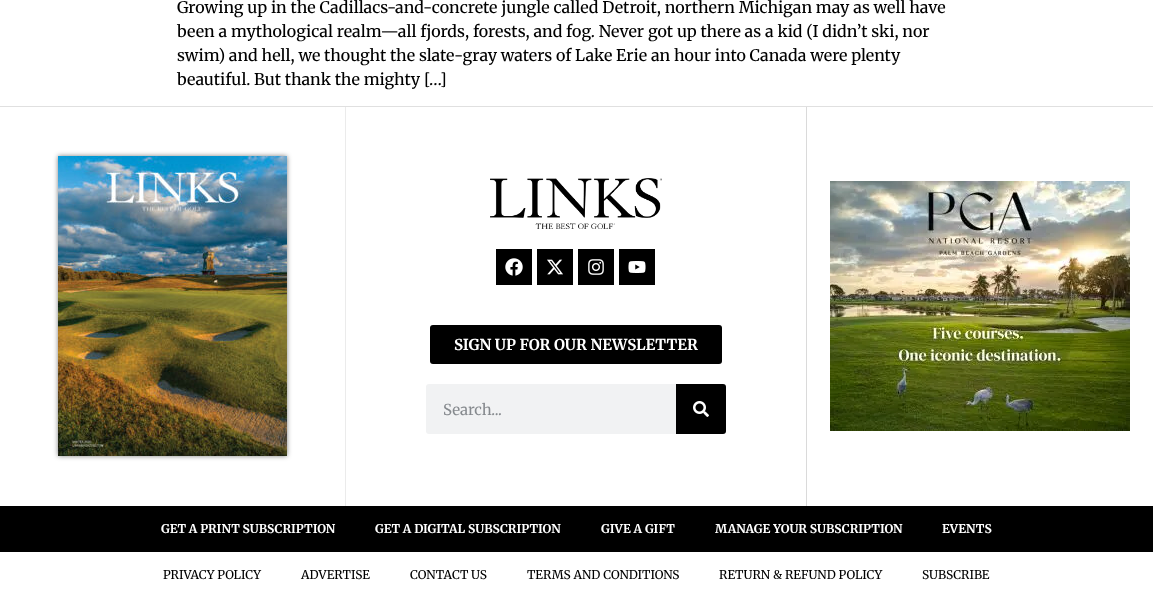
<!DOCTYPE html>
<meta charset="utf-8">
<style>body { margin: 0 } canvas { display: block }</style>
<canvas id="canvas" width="1153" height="598"></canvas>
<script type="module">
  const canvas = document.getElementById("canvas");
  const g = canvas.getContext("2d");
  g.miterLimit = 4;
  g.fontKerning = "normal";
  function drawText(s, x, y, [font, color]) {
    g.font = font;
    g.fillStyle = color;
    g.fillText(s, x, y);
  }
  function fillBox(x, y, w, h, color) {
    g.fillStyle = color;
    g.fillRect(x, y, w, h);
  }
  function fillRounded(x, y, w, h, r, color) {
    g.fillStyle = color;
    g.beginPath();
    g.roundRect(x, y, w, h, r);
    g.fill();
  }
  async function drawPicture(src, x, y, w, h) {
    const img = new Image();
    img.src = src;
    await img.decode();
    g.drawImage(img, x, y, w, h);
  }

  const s1 = ["500 16px Merriweather", "#000000"];
  const s2 = ["bold 15px Merriweather", "#FFFFFF"];
  const s3 = ["15px Merriweather", "#868A8E"];
  const s4 = ["bold 12px Merriweather", "#FFFFFF"];
  const s5 = ["500 12px Merriweather", "#000000"];

  fillBox(0, 0, 1153, 598, "#FFFFFF");
  drawText("Growing up in the Cadillacs-and-concrete jungle called Detroit, northern Michigan may as well have", 177, 13, s1);
  drawText("been a mythological realm—all fjords, forests, and fog. Never got up there as a kid (I didn’t ski, nor", 177, 37, s1);
  drawText("swim) and hell, we thought the slate-gray waters of Lake Erie an hour into Canada were plenty", 177, 61, s1);
  drawText("beautiful. But thank the mighty […]", 177, 85, s1);
  fillBox(0, 106, 1153, 1, "#E0E0E0");
  fillBox(345, 107, 1, 399, "#EBEBEB");
  g.fillStyle = "rgba(0, 0, 0, 0.5)";
  g.filter = "blur(2.5px)";
  g.beginPath();
  g.rect(58, 156, 229, 300);
  g.fill();
  g.filter = "none";
  await drawPicture("pic1.png", 58, 156, 229, 300);
  fillBox(806, 107, 1, 399, "#DADADA");
  await drawPicture("pic2.png", 490, 178, 172, 51);
  fillBox(496, 249, 36, 36, "#000000");
  await drawPicture("pic3.png", 505, 258, 18, 18);
  fillBox(537, 249, 36, 36, "#000000");
  await drawPicture("pic4.png", 547, 259, 16, 16);
  fillBox(578, 249, 36, 36, "#000000");
  await drawPicture("pic5.png", 588, 259, 16, 16);
  fillBox(619, 249, 36, 36, "#000000");
  await drawPicture("pic6.png", 628, 261, 18, 12);
  fillRounded(430, 325, 292, 39, 3, "#000000");
  drawText("SIGN UP FOR OUR NEWSLETTER", 454, 350, s2);
  fillRounded(426, 384, 300, 50, 3, "#F1F2F3");
  drawText("Search...", 443, 415, s3);
  g.fillStyle = "#000000";
  g.beginPath();
  g.roundRect(676, 384, 50, 50, [0, 3, 3, 0]);
  g.fill();
  await drawPicture("pic7.png", 693, 401, 16, 16);
  await drawPicture("pic8.png", 830, 181, 300, 250);
  fillBox(0, 506, 1153, 46, "#000000");
  drawText("GET A PRINT SUBSCRIPTION", 161, 533, s4);
  drawText("GET A DIGITAL SUBSCRIPTION", 375, 533, s4);
  drawText("GIVE A GIFT", 601, 533, s4);
  drawText("MANAGE YOUR SUBSCRIPTION", 715, 533, s4);
  drawText("EVENTS", 942, 533, s4);
  drawText("PRIVACY POLICY", 163, 579, s5);
  drawText("ADVERTISE", 301, 579, s5);
  drawText("CONTACT US", 410, 579, s5);
  drawText("TERMS AND CONDITIONS", 527, 579, s5);
  drawText("RETURN & REFUND POLICY", 719, 579, s5);
  drawText("SUBSCRIBE", 922, 579, s5);
</script>
